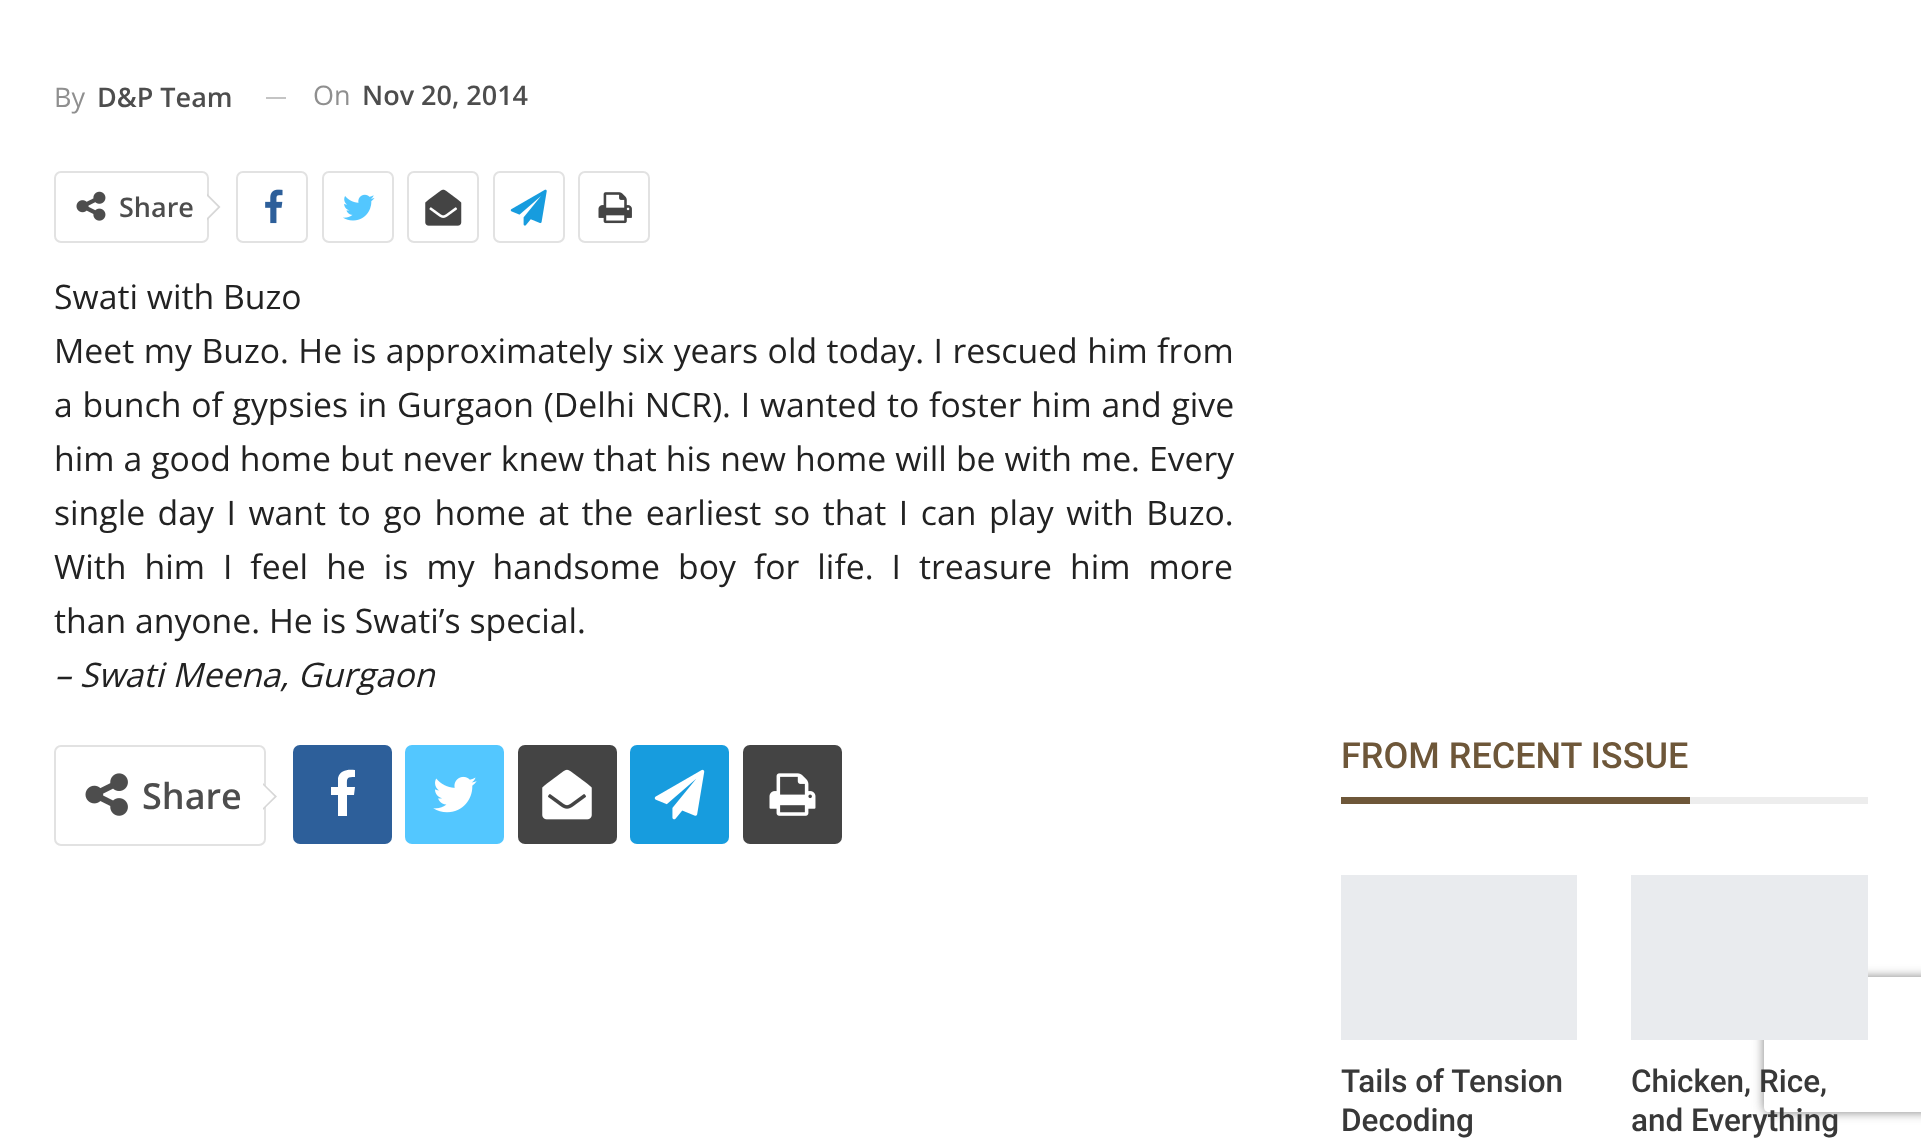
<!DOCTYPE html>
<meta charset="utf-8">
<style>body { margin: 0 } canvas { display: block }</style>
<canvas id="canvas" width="1921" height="1141"></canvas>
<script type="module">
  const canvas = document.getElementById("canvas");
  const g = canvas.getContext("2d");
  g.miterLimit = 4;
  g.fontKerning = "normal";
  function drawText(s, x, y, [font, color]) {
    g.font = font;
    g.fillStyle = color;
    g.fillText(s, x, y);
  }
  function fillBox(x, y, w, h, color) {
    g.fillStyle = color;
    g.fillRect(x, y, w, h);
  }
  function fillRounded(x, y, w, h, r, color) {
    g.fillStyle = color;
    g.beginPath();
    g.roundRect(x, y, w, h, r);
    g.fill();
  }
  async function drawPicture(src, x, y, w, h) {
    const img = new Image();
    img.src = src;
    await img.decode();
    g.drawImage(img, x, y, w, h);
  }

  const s1 = ["27px Open Sans", "#8F8F8F"];
  const s2 = ["600 27px Open Sans", "#4D4D4D"];
  const s3 = ["33.75px Open Sans", "#222222"];
  const s4 = ["italic 33.75px Open Sans", "#222222"];
  const s5 = ["600 36px Open Sans", "#4D4D4D"];
  const s6 = ["500 36px Roboto", "#6E5739"];
  const s7 = ["500 31.5px Roboto", "#383838"];

  fillBox(0, 0, 1921, 1141, "#FFFFFF");
  drawText("By", 54, 107, s1);
  drawText("D&P Team", 97, 107, s2);
  fillBox(266, 97, 20, 2, "#C4C4C4");
  drawText("On", 313, 105, s1);
  drawText("Nov 20, 2014", 362, 105, s2);
  g.beginPath();
  g.roundRect(55, 172, 153, 70, 6);
  g.strokeStyle = "#E2E2E2";
  g.lineWidth = 2;
  g.stroke();
  await drawPicture("pic1.png", 76, 191, 30, 30);
  drawText("Share", 119, 217, s2);
  g.fillStyle = "#D7D7D7";
  g.beginPath();
  g.moveTo(207, 220.5);
  g.lineTo(207, 193.5);
  g.lineTo(220.5, 207);
  g.closePath();
  g.fill();
  g.fillStyle = "#FFFFFF";
  g.beginPath();
  g.moveTo(207, 218);
  g.lineTo(207, 196);
  g.lineTo(218, 207);
  g.closePath();
  g.fill();
  g.beginPath();
  g.roundRect(237, 172, 70, 70, 6);
  g.stroke();
  await drawPicture("pic2.png", 265, 189, 18, 35);
  g.beginPath();
  g.roundRect(323, 172, 70, 70, 6);
  g.stroke();
  await drawPicture("pic3.png", 343, 194, 32, 27);
  g.beginPath();
  g.roundRect(408, 172, 70, 70, 6);
  g.stroke();
  await drawPicture("pic4.png", 425, 189, 37, 37);
  g.beginPath();
  g.roundRect(494, 172, 70, 70, 6);
  g.stroke();
  await drawPicture("pic5.png", 510, 189, 37, 37);
  g.beginPath();
  g.roundRect(579, 172, 70, 70, 6);
  g.stroke();
  await drawPicture("pic6.png", 598, 192, 34, 32);
  drawText("Swati with Buzo", 54, 309, s3);
  g.wordSpacing = "0.7px";
  drawText("Meet my Buzo. He is approximately six years old today. I rescued him from", 54, 363, s3);
  g.wordSpacing = "1px";
  drawText("a bunch of gypsies in Gurgaon (Delhi NCR). I wanted to foster him and give", 54, 417, s3);
  g.wordSpacing = "0.25px";
  drawText("him a good home but never knew that his new home will be with me. Every", 54, 471, s3);
  g.wordSpacing = "3.75px";
  drawText("single day I want to go home at the earliest so that I can play with Buzo.", 54, 525, s3);
  g.wordSpacing = "9.25px";
  drawText("With him I feel he is my handsome boy for life. I treasure him more", 54, 579, s3);
  g.wordSpacing = "0px";
  drawText("than anyone. He is Swati’s special.", 54, 633, s3);
  drawText("– Swati Meena, Gurgaon", 54, 687, s4);
  g.beginPath();
  g.roundRect(55, 746, 210, 99, 6);
  g.stroke();
  await drawPicture("pic7.png", 85, 773, 43, 43);
  drawText("Share", 142, 809, s5);
  g.fillStyle = "#D7D7D7";
  g.beginPath();
  g.moveTo(263, 810);
  g.lineTo(263, 783);
  g.lineTo(277, 796.5);
  g.closePath();
  g.fill();
  g.fillStyle = "#FFFFFF";
  g.beginPath();
  g.moveTo(263, 808);
  g.lineTo(263, 785);
  g.lineTo(274.5, 796.5);
  g.closePath();
  g.fill();
  fillRounded(293, 745, 99, 99, 7, "#2D5F9A");
  g.fillStyle = "#FFFFFF";
  g.beginPath();
  g.moveTo(355, 770);
  g.bezierCurveTo(348, 769, 340, 770, 338, 778);
  g.lineTo(338, 787);
  g.lineTo(331, 787);
  g.lineTo(331, 795);
  g.lineTo(338, 795);
  g.lineTo(338, 816);
  g.lineTo(347, 816);
  g.lineTo(347, 795);
  g.lineTo(354, 795);
  g.lineTo(355, 787);
  g.lineTo(347, 787);
  g.bezierCurveTo(347, 778, 346, 777, 355, 777);
  g.closePath();
  g.fill();
  fillRounded(405, 745, 99, 99, 7, "#53C7FF");
  await drawPicture("pic8.png", 433, 776, 44, 37);
  fillRounded(518, 745, 99, 99, 7, "#444444");
  await drawPicture("pic9.png", 542, 769, 50, 51);
  fillRounded(630, 745, 99, 99, 7, "#179CDE");
  await drawPicture("pic10.png", 654, 769, 51, 51);
  fillRounded(743, 745, 99, 99, 7, "#444444");
  await drawPicture("pic11.png", 769, 773, 47, 43);
  drawText("FROM RECENT ISSUE", 1341, 768, s6);
  fillBox(1341, 797, 349, 7, "#6E5739");
  fillBox(1690, 797, 178, 7, "#EDEDED");
  fillBox(1341, 875, 236, 165, "#E9EBEE");
  drawText("Tails of Tension", 1341, 1092, s7);
  drawText("Decoding", 1341, 1131, s7);
  g.save();
  g.beginPath();
  g.moveTo(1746, 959);
  g.lineTo(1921, 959);
  g.lineTo(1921, 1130);
  g.lineTo(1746, 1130);
  g.closePath();
  g.moveTo(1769, 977);
  g.lineTo(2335, 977);
  g.bezierCurveTo(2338, 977, 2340, 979, 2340, 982);
  g.lineTo(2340, 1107);
  g.bezierCurveTo(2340, 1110, 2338, 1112, 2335, 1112);
  g.lineTo(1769, 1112);
  g.bezierCurveTo(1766, 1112, 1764, 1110, 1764, 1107);
  g.lineTo(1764, 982);
  g.bezierCurveTo(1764, 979, 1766, 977, 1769, 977);
  g.closePath();
  g.clip("evenodd");
  g.fillStyle = "#808080";
  g.filter = "blur(5.5px)";
  g.beginPath();
  g.roundRect(1764, 977, 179, 135, 5);
  g.fill();
  g.filter = "none";
  g.restore();
  fillBox(1631, 875, 237, 165, "#E9EBEE");
  drawText("Chicken, Rice,", 1631, 1092, s7);
  drawText("and Everything", 1631, 1131, s7);
</script>
